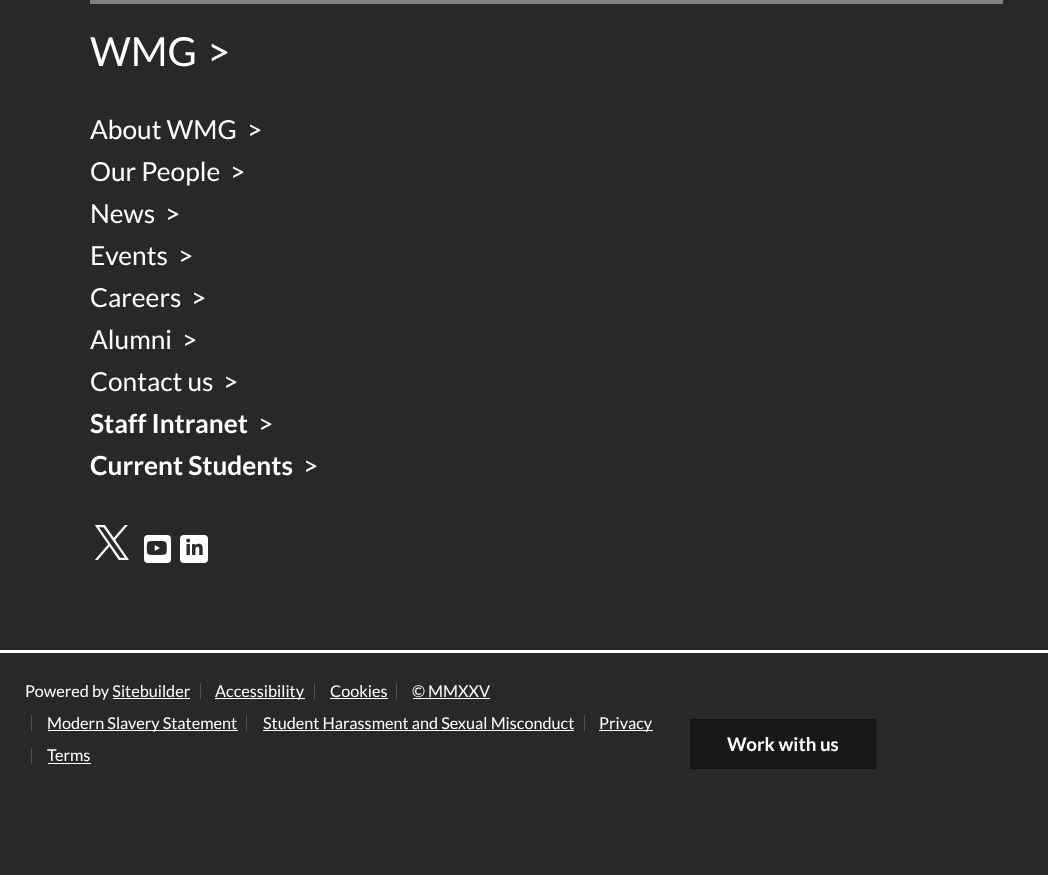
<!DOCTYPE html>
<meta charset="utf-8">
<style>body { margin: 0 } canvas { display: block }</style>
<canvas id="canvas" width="1048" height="875"></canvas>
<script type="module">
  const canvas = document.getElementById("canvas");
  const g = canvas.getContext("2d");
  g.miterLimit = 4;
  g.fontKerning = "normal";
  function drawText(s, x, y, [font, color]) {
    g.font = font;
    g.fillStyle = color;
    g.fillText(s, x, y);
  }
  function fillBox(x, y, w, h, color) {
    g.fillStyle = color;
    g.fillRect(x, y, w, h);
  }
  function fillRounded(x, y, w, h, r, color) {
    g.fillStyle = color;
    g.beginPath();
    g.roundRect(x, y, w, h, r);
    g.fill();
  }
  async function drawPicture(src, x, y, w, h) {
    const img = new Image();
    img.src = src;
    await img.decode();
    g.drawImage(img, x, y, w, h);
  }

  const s1 = ["40px Lato", "#FFFFFF"];
  const s2 = ["26.25px Lato", "#FFFFFF"];
  const s3 = ["bold 26.25px Lato", "#FFFFFF"];
  const s4 = ["16.25px Lato", "#FFFFFF"];
  const s5 = ["bold 18.75px Lato", "#FFFFFF"];

  fillBox(0, 0, 1048, 875, "#282828");
  fillBox(90, 0, 913, 4, "#818181");
  drawText("WMG", 90, 66, s1);
  drawText(">", 207, 66, s1);
  drawText("About WMG", 90, 139, s2);
  drawText(">", 247, 139, s2);
  drawText("Our People", 90, 181, s2);
  drawText(">", 230, 181, s2);
  drawText("News", 90, 223, s2);
  drawText(">", 165, 223, s2);
  drawText("Events", 90, 265, s2);
  drawText(">", 178, 265, s2);
  drawText("Careers", 90, 307, s2);
  drawText(">", 191, 307, s2);
  drawText("Alumni", 90, 349, s2);
  drawText(">", 182, 349, s2);
  drawText("Contact us", 90, 391, s2);
  drawText(">", 223, 391, s2);
  drawText("Staff Intranet", 90, 433, s3);
  drawText(">", 258, 433, s2);
  drawText("Current Students", 90, 475, s3);
  drawText(">", 303, 475, s2);
  await drawPicture("pic1.png", 94, 525, 35, 35);
  fillRounded(144, 535, 27, 28, 4, "#FFFFFF");
  await drawPicture("pic2.png", 146, 540, 21, 15);
  fillRounded(180, 535, 28, 28, 4, "#FFFFFF");
  await drawPicture("pic3.png", 186, 538, 17, 17);
  fillBox(0, 650, 1048, 3, "#FFFFFF");
  drawText("Powered by Sitebuilder", 25, 697, s4);
  fillBox(113, 698, 77, 1, "#FFFFFF");
  fillBox(200, 683, 1, 16, "#505050");
  fillBox(215, 698, 90, 1, "#FFFFFF");
  drawText("Accessibility", 215, 697, s4);
  fillBox(314, 683, 1, 16, "#505050");
  drawText("Cookies", 330, 697, s4);
  fillBox(330, 698, 58, 1, "#FFFFFF");
  fillBox(396, 683, 1, 16, "#505050");
  drawText("© MMXXV", 412, 697, s4);
  fillBox(413, 698, 77, 1, "#FFFFFF");
  fillBox(31, 715, 1, 16, "#505050");
  fillBox(48, 730, 190, 1, "#FFFFFF");
  drawText("Modern Slavery Statement", 47, 729, s4);
  fillBox(246, 715, 1, 16, "#505050");
  drawText("Student Harassment and Sexual Misconduct", 263, 729, s4);
  fillBox(263, 730, 311, 1, "#FFFFFF");
  fillBox(584, 715, 1, 16, "#505050");
  fillBox(599, 730, 54, 1, "#FFFFFF");
  drawText("Privacy", 599, 729, s4);
  fillBox(31, 748, 1, 16, "#505050");
  drawText("Terms", 47, 761, s4);
  fillBox(48, 763, 43, 1, "#FFFFFF");
  g.fillStyle = "#181818";
  g.beginPath();
  g.rect(690.5, 719.5, 185, 49);
  g.fill();
  g.strokeStyle = "#111111";
  g.stroke();
  drawText("Work with us", 727, 751, s5);
</script>
